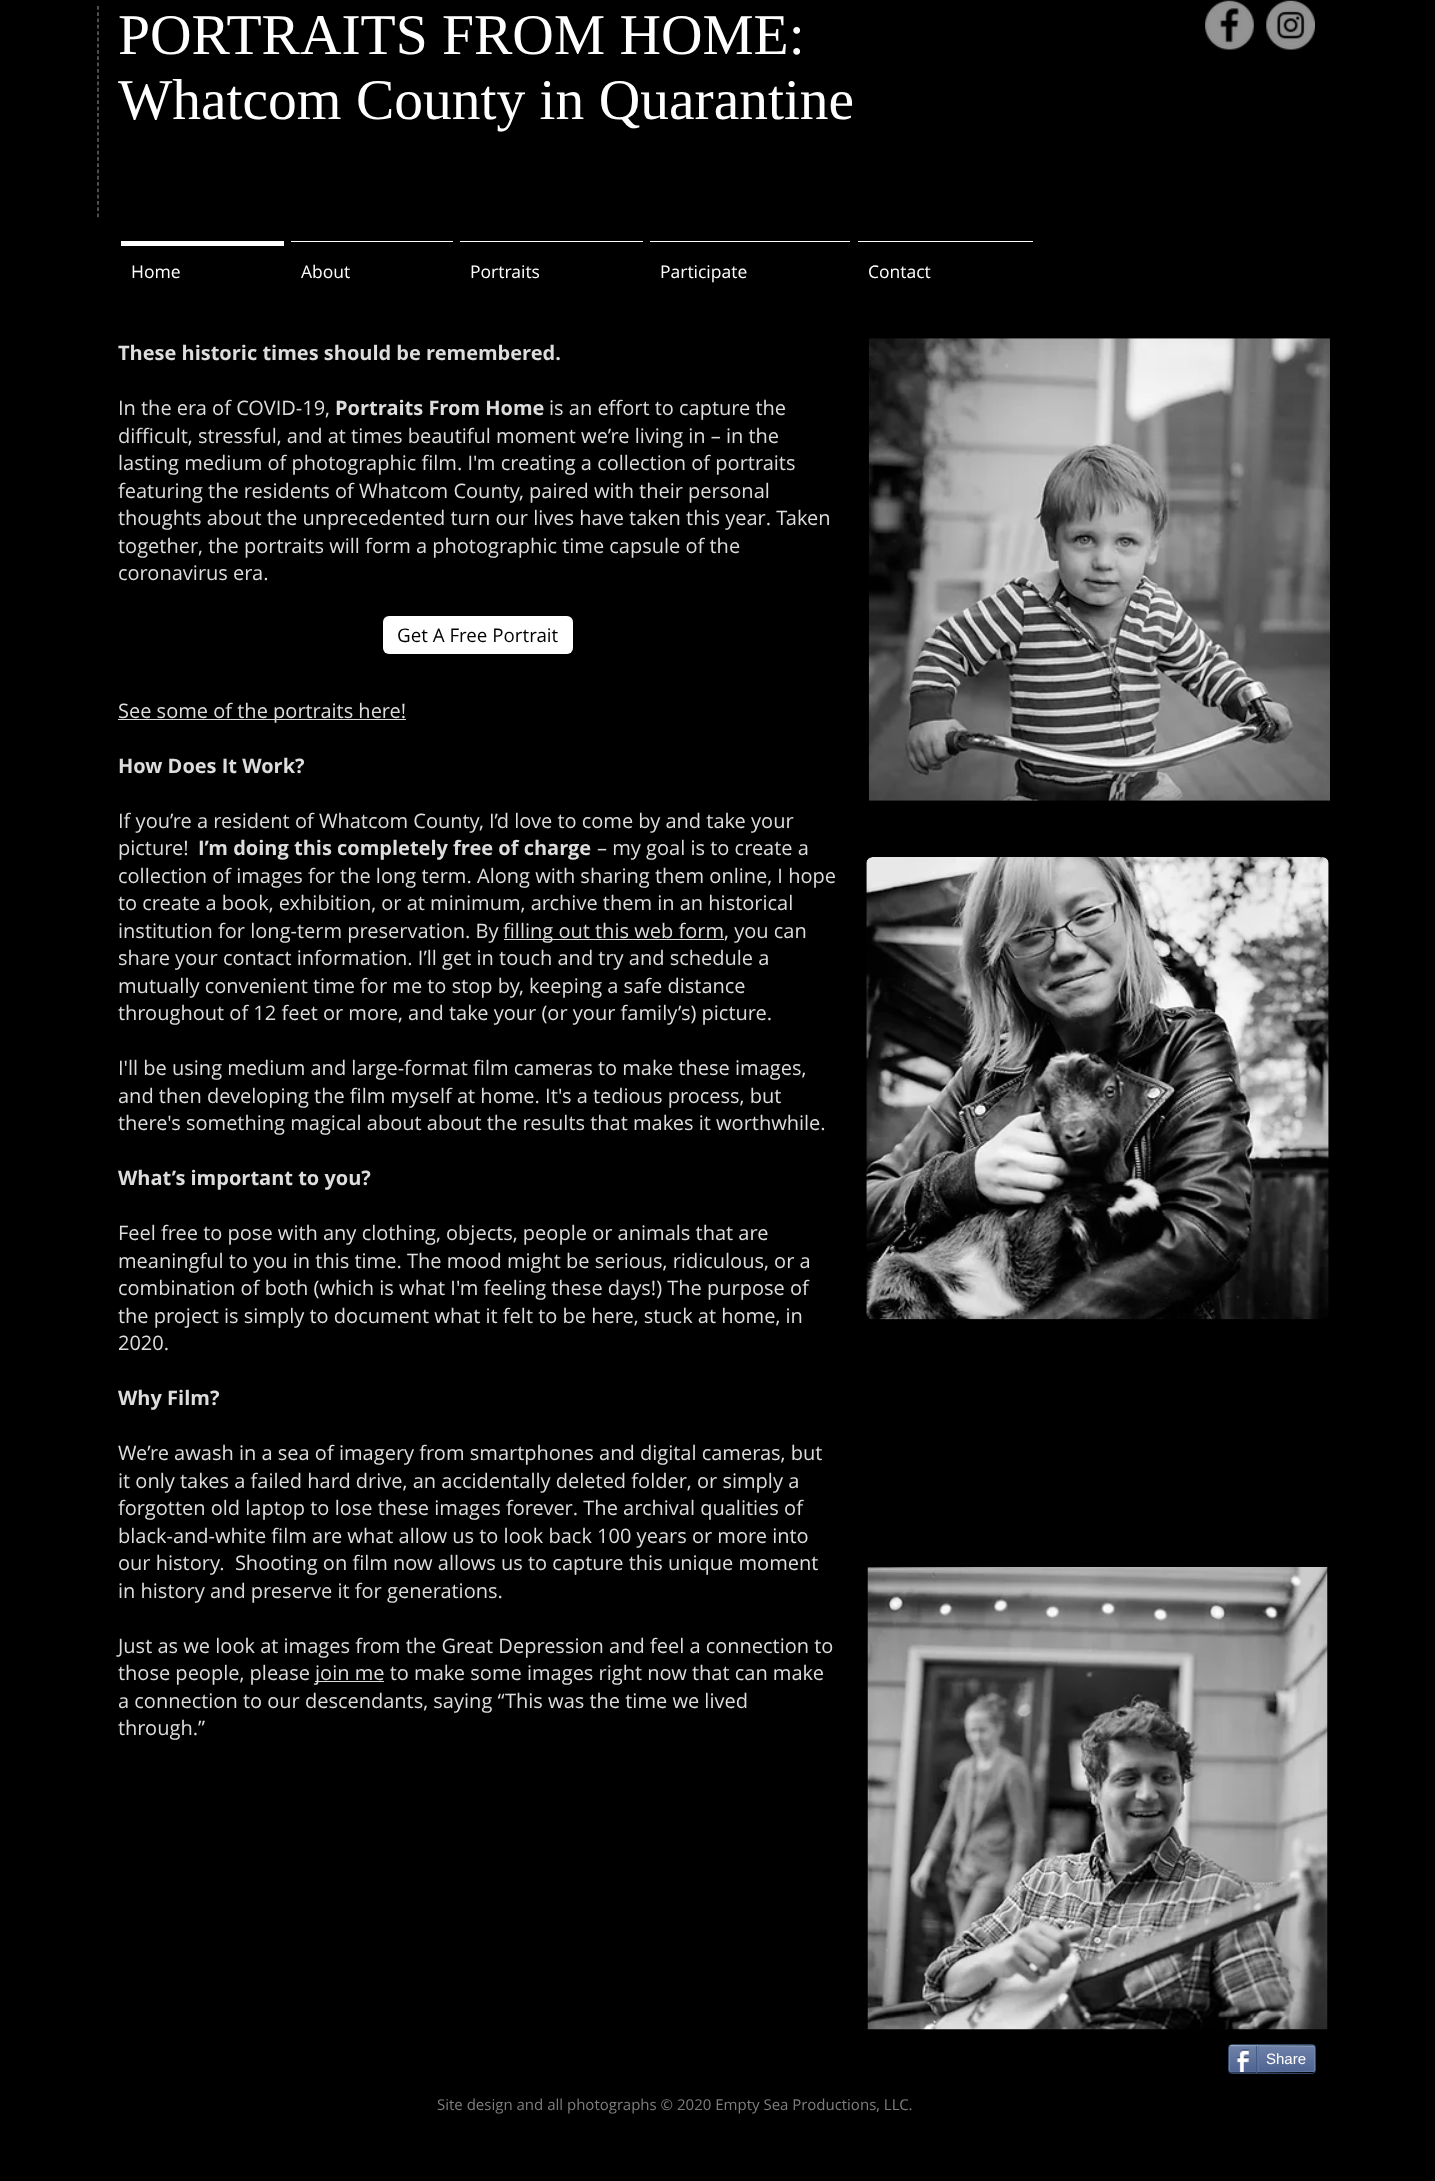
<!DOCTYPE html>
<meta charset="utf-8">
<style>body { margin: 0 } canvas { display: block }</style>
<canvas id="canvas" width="1435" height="2181"></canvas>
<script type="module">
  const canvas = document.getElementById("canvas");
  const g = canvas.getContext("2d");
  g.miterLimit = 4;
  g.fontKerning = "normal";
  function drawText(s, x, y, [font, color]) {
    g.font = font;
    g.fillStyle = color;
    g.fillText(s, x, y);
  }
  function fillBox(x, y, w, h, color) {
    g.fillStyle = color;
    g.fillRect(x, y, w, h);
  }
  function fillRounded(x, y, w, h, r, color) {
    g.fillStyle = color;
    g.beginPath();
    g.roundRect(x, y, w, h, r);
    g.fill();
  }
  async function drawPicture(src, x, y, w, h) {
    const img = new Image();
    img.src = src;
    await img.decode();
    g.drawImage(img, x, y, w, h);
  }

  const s1 = ["57.5px Liberation Serif", "#FFFFFF"];
  const s2 = ["17.5px Open Sans", "#FFFFFF"];
  const s3 = ["bold 20px Open Sans", "#DDDDDD"];
  const s4 = ["20px Open Sans", "#DDDDDD"];
  const s5 = ["18.75px Open Sans", "#000000"];
  const s6 = ["15px Liberation Sans", "#FFFFFF"];
  const s7 = ["15px Open Sans", "#7F7E7E"];

  fillBox(0, 0, 1435, 2181, "#000000");
  g.beginPath();
  g.moveTo(98, 6);
  g.lineTo(98, 217.5);
  g.strokeStyle = "#808080";
  g.lineWidth = 1.2;
  g.setLineDash([3.75, 2.54]);
  g.stroke();
  drawText("PORTRAITS FROM HOME:", 118, 54, s1);
  drawText("Whatcom County in Quarantine", 118, 119, s1);
  await drawPicture("pic1.png", 1205, 0, 49, 50);
  await drawPicture("pic2.png", 1266, 0, 49, 50);
  fillBox(121, 241, 163, 5, "#FFFFFF");
  drawText("Home", 131, 278, s2);
  fillBox(291, 241, 162, 1, "#FFFFFF");
  drawText("About", 301, 278, s2);
  fillBox(460, 241, 183, 1, "#FFFFFF");
  drawText("Portraits", 470, 278, s2);
  fillBox(650, 241, 200, 1, "#FFFFFF");
  drawText("Participate", 660, 278, s2);
  fillBox(858, 241, 175, 1, "#FFFFFF");
  drawText("Contact", 868, 278, s2);
  drawText("These historic times should be remembered.", 118, 360, s3);
  drawText("In the era of COVID-19,", 118, 415, s4);
  drawText("Portraits From Home", 335, 415, s3);
  drawText("is an effort to capture the", 549, 415, s4);
  drawText("difficult, stressful, and at times beautiful moment we’re living in – in the", 118, 443, s4);
  drawText("lasting medium of photographic film. I'm creating a collection of portraits", 118, 470, s4);
  drawText("featuring the residents of Whatcom County, paired with their personal", 118, 498, s4);
  drawText("thoughts about the unprecedented turn our lives have taken this year. Taken", 118, 525, s4);
  drawText("together, the portraits will form a photographic time capsule of the", 118, 553, s4);
  drawText("coronavirus era.", 118, 580, s4);
  fillBox(118, 719, 288, 1, "#DDDDDD");
  drawText("See some of the portraits here!", 118, 718, s4);
  drawText("How Does It Work?", 118, 773, s3);
  drawText("If you’re a resident of Whatcom County, I’d love to come by and take your", 118, 828, s4);
  drawText("picture!", 118, 855, s4);
  drawText("I’m doing this completely free of charge", 198, 855, s3);
  drawText("– my goal is to create a", 597, 855, s4);
  drawText("collection of images for the long term. Along with sharing them online, I hope", 118, 883, s4);
  drawText("to create a book, exhibition, or at minimum, archive them in an historical", 118, 910, s4);
  drawText("institution for long-term preservation. By", 118, 938, s4);
  fillBox(504, 939, 220, 1, "#DDDDDD");
  drawText("filling out this web form, you can", 503, 938, s4);
  drawText("share your contact information. I’ll get in touch and try and schedule a", 118, 965, s4);
  drawText("mutually convenient time for me to stop by, keeping a safe distance", 118, 993, s4);
  drawText("throughout of 12 feet or more, and take your (or your family’s) picture.", 118, 1020, s4);
  drawText("I'll be using medium and large-format film cameras to make these images,", 118, 1075, s4);
  drawText("and then developing the film myself at home. It's a tedious process, but", 118, 1103, s4);
  drawText("there's something magical about about the results that makes it worthwhile.", 118, 1130, s4);
  drawText("What’s important to you?", 118, 1185, s3);
  drawText("Feel free to pose with any clothing, objects, people or animals that are", 118, 1240, s4);
  drawText("meaningful to you in this time. The mood might be serious, ridiculous, or a", 118, 1268, s4);
  drawText("combination of both (which is what I'm feeling these days!) The purpose of", 118, 1295, s4);
  drawText("the project is simply to document what it felt to be here, stuck at home, in", 118, 1323, s4);
  drawText("2020.", 118, 1350, s4);
  drawText("Why Film?", 118, 1405, s3);
  drawText("We’re awash in a sea of imagery from smartphones and digital cameras, but", 118, 1460, s4);
  drawText("it only takes a failed hard drive, an accidentally deleted folder, or simply a", 118, 1488, s4);
  drawText("forgotten old laptop to lose these images forever. The archival qualities of", 118, 1515, s4);
  drawText("black-and-white film are what allow us to look back 100 years or more into", 118, 1543, s4);
  drawText("our history.  Shooting on film now allows us to capture this unique moment", 118, 1570, s4);
  drawText("in history and preserve it for generations.", 118, 1598, s4);
  drawText("Just as we look at images from the Great Depression and feel a connection to", 118, 1653, s4);
  drawText("those people, please", 118, 1680, s4);
  fillBox(315, 1681, 69, 1, "#DDDDDD");
  drawText("join me to make some images right now that can make", 315, 1680, s4);
  drawText("a connection to our descendants, saying “This was the time we lived", 118, 1708, s4);
  drawText("through.”", 118, 1735, s4);
  await drawPicture("pic3.png", 868, 338, 462, 463);
  fillRounded(383, 616, 190, 38, 6, "#FFFFFF");
  drawText("Get A Free Portrait", 397, 642, s5);
  await drawPicture("pic4.png", 866, 857, 463, 463);
  await drawPicture("pic5.png", 867, 1567, 461, 463);
  g.beginPath();
  g.roundRect(1228.5, 2044.5, 87, 29, 3.5);
  g.strokeStyle = "#2D4565";
  g.lineWidth = 1;
  g.setLineDash([]);
  g.stroke();
  await drawPicture("pic6.png", 1228, 2045, 87, 27);
  g.beginPath();
  g.moveTo(1230, 2046);
  g.lineTo(1231, 2045.5);
  g.lineTo(1314, 2046);
  g.strokeStyle = "#9AABC6";
  g.lineWidth = 1.2;
  g.stroke();
  g.beginPath();
  g.moveTo(1314, 2046);
  g.lineTo(1314.5, 2047.5);
  g.lineTo(1314.5, 2070);
  g.lineTo(1314, 2071.5);
  g.strokeStyle = "#6F83AD";
  g.stroke();
  g.beginPath();
  g.moveTo(1314, 2071.5);
  g.lineTo(1245, 2072);
  g.lineTo(1231, 2072);
  g.lineTo(1230, 2071.5);
  g.strokeStyle = "#6176A3";
  g.stroke();
  g.beginPath();
  g.moveTo(1230, 2071.5);
  g.lineTo(1229.5, 2070);
  g.lineTo(1229.5, 2047.5);
  g.lineTo(1230, 2046);
  g.strokeStyle = "#6F83AD";
  g.stroke();
  await drawPicture("pic7.png", 1236, 2049, 13, 23);
  fillBox(1256, 2046, 1, 27, "#425E85");
  drawText("Share", 1266, 2064, s6);
  fillBox(1258, 2046, 1, 25, "#6176A3");
  drawText("Site design and all photographs © 2020 Empty Sea Productions, LLC.", 437, 2110, s7);
</script>
